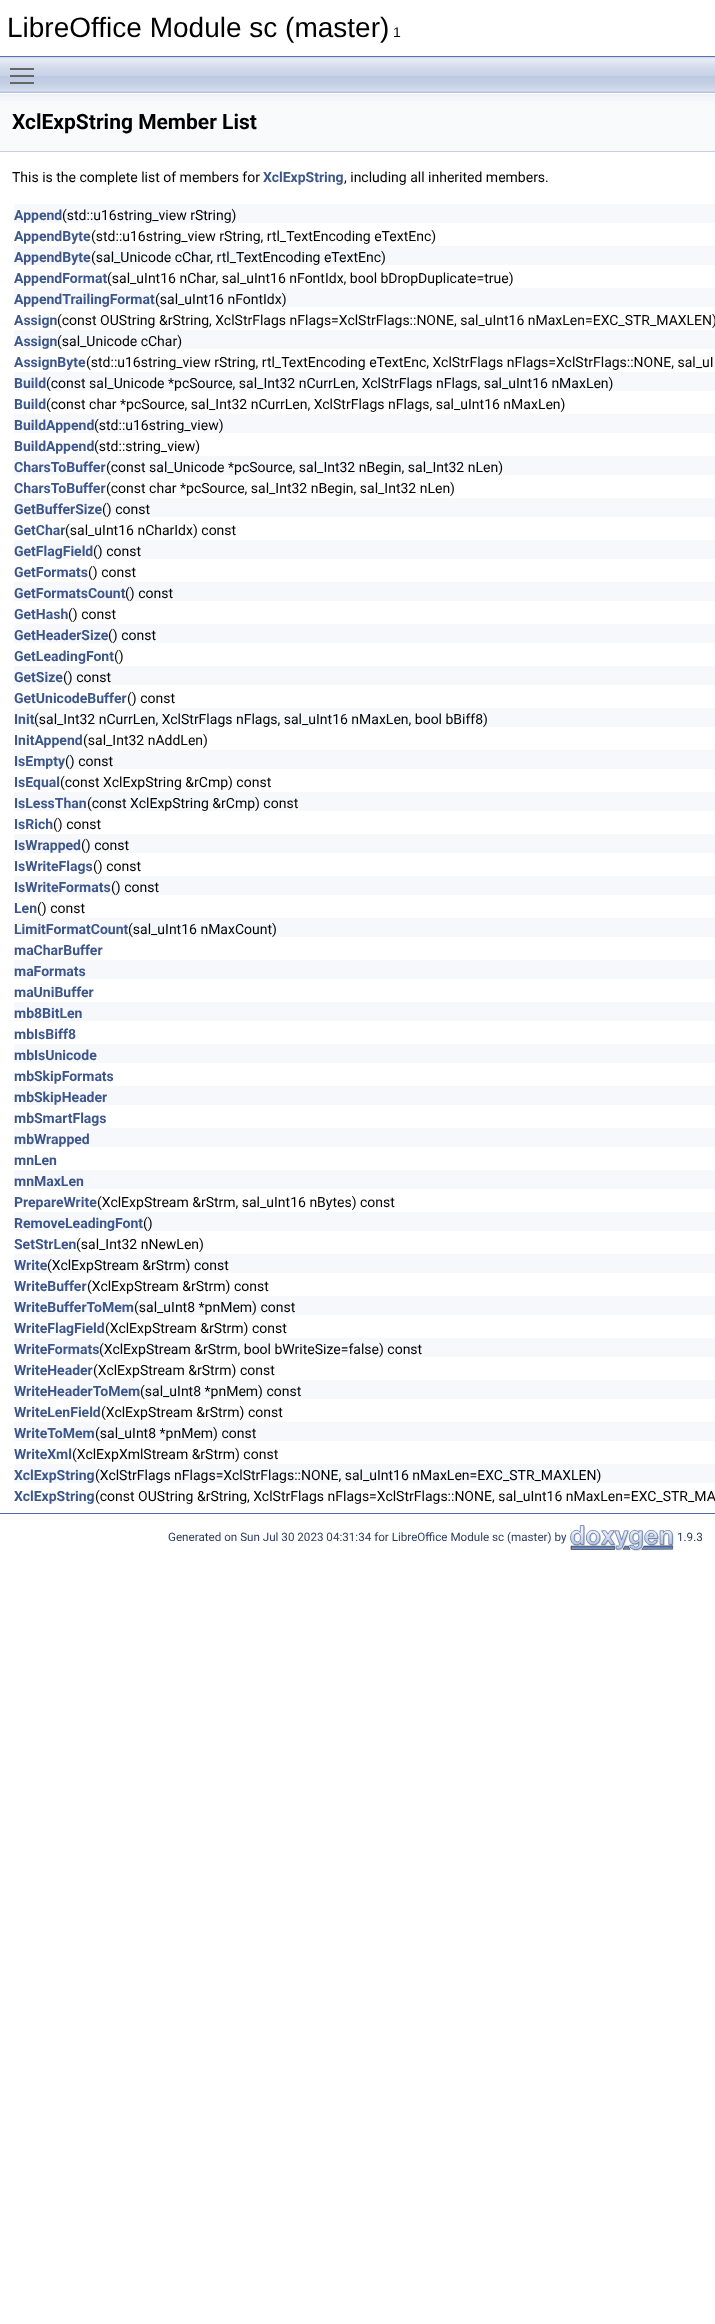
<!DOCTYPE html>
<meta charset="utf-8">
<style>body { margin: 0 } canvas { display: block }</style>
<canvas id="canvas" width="715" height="2324"></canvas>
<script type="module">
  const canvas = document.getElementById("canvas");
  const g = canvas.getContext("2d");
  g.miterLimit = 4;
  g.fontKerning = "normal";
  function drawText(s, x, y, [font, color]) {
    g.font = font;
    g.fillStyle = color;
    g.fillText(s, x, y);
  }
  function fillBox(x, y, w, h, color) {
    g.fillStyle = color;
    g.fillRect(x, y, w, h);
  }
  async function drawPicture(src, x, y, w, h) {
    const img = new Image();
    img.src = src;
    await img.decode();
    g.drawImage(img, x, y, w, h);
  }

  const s1 = ["28px Liberation Sans", "#000000"];
  const s2 = ["14px Liberation Sans", "#000000"];
  const s3 = ["bold 21px Roboto", "#000000"];
  const s4 = ["14px Roboto", "#000000"];
  const s5 = ["bold 14px Roboto", "#3D578C"];
  const s6 = ["11.65px Roboto", "#2A3D61"];

  fillBox(0, 0, 715, 2324, "#FFFFFF");
  fillBox(0, 56, 715, 1, "#5373B4");
  drawText("LibreOffice Module sc (master)", 7, 37, s1);
  drawText("1", 393, 37, s2);
  await drawPicture("pic1.png", 0, 57, 715, 36);
  fillBox(10, 75, 24, 2, "#666666");
  fillBox(10, 68, 24, 2, "#666666");
  fillBox(10, 82, 24, 2, "#666666");
  fillBox(0, 101, 715, 50, "#F9FAFC");
  await drawPicture("pic2.png", 0, 93, 715, 8);
  fillBox(0, 151, 715, 1, "#C4CFE5");
  drawText("XclExpString Member List", 12, 129, s3);
  drawText("This is the complete list of members for", 12, 182, s4);
  drawText("XclExpString", 263, 182, s5);
  drawText(", including all inherited members.", 344, 182, s4);
  fillBox(14, 204, 701, 19, "#F7F8FB");
  drawText("Append", 14, 220, s5);
  drawText("(std::u16string_view rString)", 62, 220, s4);
  drawText("AppendByte", 14, 241, s5);
  drawText("(std::u16string_view rString, rtl_TextEncoding eTextEnc)", 91, 241, s4);
  fillBox(14, 246, 701, 19, "#F7F8FB");
  drawText("AppendByte", 14, 262, s5);
  drawText("(sal_Unicode cChar, rtl_TextEncoding eTextEnc)", 91, 262, s4);
  drawText("AppendFormat", 14, 283, s5);
  drawText("(sal_uInt16 nChar, sal_uInt16 nFontIdx, bool bDropDuplicate=true)", 107, 283, s4);
  fillBox(14, 288, 701, 19, "#F7F8FB");
  drawText("AppendTrailingFormat", 14, 304, s5);
  drawText("(sal_uInt16 nFontIdx)", 155, 304, s4);
  drawText("Assign", 14, 325, s5);
  drawText("(const OUString &rString, XclStrFlags nFlags=XclStrFlags::NONE, sal_uInt16 nMaxLen=EXC_STR_MAXLEN)", 57, 325, s4);
  fillBox(14, 330, 701, 19, "#F7F8FB");
  drawText("Assign", 14, 346, s5);
  drawText("(sal_Unicode cChar)", 57, 346, s4);
  drawText("AssignByte", 14, 367, s5);
  drawText("(std::u16string_view rString, rtl_TextEncoding eTextEnc, XclStrFlags nFlags=XclStrFlags::NONE, sal_uI", 86, 367, s4);
  fillBox(14, 372, 701, 19, "#F7F8FB");
  drawText("Build", 14, 388, s5);
  drawText("(const sal_Unicode *pcSource, sal_Int32 nCurrLen, XclStrFlags nFlags, sal_uInt16 nMaxLen)", 46, 388, s4);
  drawText("Build", 14, 409, s5);
  drawText("(const char *pcSource, sal_Int32 nCurrLen, XclStrFlags nFlags, sal_uInt16 nMaxLen)", 46, 409, s4);
  fillBox(14, 414, 701, 19, "#F7F8FB");
  drawText("BuildAppend", 14, 430, s5);
  drawText("(std::u16string_view)", 94, 430, s4);
  drawText("BuildAppend", 14, 451, s5);
  drawText("(std::string_view)", 94, 451, s4);
  fillBox(14, 456, 701, 19, "#F7F8FB");
  drawText("CharsToBuffer", 14, 472, s5);
  drawText("(const sal_Unicode *pcSource, sal_Int32 nBegin, sal_Int32 nLen)", 106, 472, s4);
  drawText("CharsToBuffer", 14, 493, s5);
  drawText("(const char *pcSource, sal_Int32 nBegin, sal_Int32 nLen)", 106, 493, s4);
  fillBox(14, 498, 701, 19, "#F7F8FB");
  drawText("GetBufferSize", 14, 514, s5);
  drawText("() const", 102, 514, s4);
  drawText("GetChar", 14, 535, s5);
  drawText("(sal_uInt16 nCharIdx) const", 65, 535, s4);
  fillBox(14, 540, 701, 19, "#F7F8FB");
  drawText("GetFlagField", 14, 556, s5);
  drawText("() const", 93, 556, s4);
  drawText("GetFormats", 14, 577, s5);
  drawText("() const", 88, 577, s4);
  fillBox(14, 582, 701, 19, "#F7F8FB");
  drawText("GetFormatsCount", 14, 598, s5);
  drawText("() const", 125, 598, s4);
  drawText("GetHash", 14, 619, s5);
  drawText("() const", 68, 619, s4);
  fillBox(14, 624, 701, 19, "#F7F8FB");
  drawText("GetHeaderSize", 14, 640, s5);
  drawText("() const", 108, 640, s4);
  drawText("GetLeadingFont", 14, 661, s5);
  drawText("()", 114, 661, s4);
  fillBox(14, 666, 701, 19, "#F7F8FB");
  drawText("GetSize", 14, 682, s5);
  drawText("() const", 63, 682, s4);
  drawText("GetUnicodeBuffer", 14, 703, s5);
  drawText("() const", 127, 703, s4);
  fillBox(14, 708, 701, 19, "#F7F8FB");
  drawText("Init", 14, 724, s5);
  drawText("(sal_Int32 nCurrLen, XclStrFlags nFlags, sal_uInt16 nMaxLen, bool bBiff8)", 34, 724, s4);
  drawText("InitAppend", 14, 745, s5);
  drawText("(sal_Int32 nAddLen)", 83, 745, s4);
  fillBox(14, 750, 701, 19, "#F7F8FB");
  drawText("IsEmpty", 14, 766, s5);
  drawText("() const", 65, 766, s4);
  drawText("IsEqual", 14, 787, s5);
  drawText("(const XclExpString &rCmp) const", 60, 787, s4);
  fillBox(14, 792, 701, 19, "#F7F8FB");
  drawText("IsLessThan", 14, 808, s5);
  drawText("(const XclExpString &rCmp) const", 87, 808, s4);
  drawText("IsRich", 14, 829, s5);
  drawText("() const", 53, 829, s4);
  fillBox(14, 834, 701, 19, "#F7F8FB");
  drawText("IsWrapped", 14, 850, s5);
  drawText("() const", 81, 850, s4);
  drawText("IsWriteFlags", 14, 871, s5);
  drawText("() const", 93, 871, s4);
  fillBox(14, 876, 701, 19, "#F7F8FB");
  drawText("IsWriteFormats", 14, 892, s5);
  drawText("() const", 111, 892, s4);
  drawText("Len", 14, 913, s5);
  drawText("() const", 37, 913, s4);
  fillBox(14, 918, 701, 19, "#F7F8FB");
  drawText("LimitFormatCount", 14, 934, s5);
  drawText("(sal_uInt16 nMaxCount)", 128, 934, s4);
  drawText("maCharBuffer", 14, 955, s5);
  fillBox(14, 960, 701, 19, "#F7F8FB");
  drawText("maFormats", 14, 976, s5);
  drawText("maUniBuffer", 14, 997, s5);
  fillBox(14, 1002, 701, 19, "#F7F8FB");
  drawText("mb8BitLen", 14, 1018, s5);
  drawText("mbIsBiff8", 14, 1039, s5);
  fillBox(14, 1044, 701, 19, "#F7F8FB");
  drawText("mbIsUnicode", 14, 1060, s5);
  drawText("mbSkipFormats", 14, 1081, s5);
  fillBox(14, 1086, 701, 19, "#F7F8FB");
  drawText("mbSkipHeader", 14, 1102, s5);
  drawText("mbSmartFlags", 14, 1123, s5);
  fillBox(14, 1128, 701, 19, "#F7F8FB");
  drawText("mbWrapped", 14, 1144, s5);
  drawText("mnLen", 14, 1165, s5);
  fillBox(14, 1170, 701, 19, "#F7F8FB");
  drawText("mnMaxLen", 14, 1186, s5);
  drawText("PrepareWrite", 14, 1207, s5);
  drawText("(XclExpStream &rStrm, sal_uInt16 nBytes) const", 97, 1207, s4);
  fillBox(14, 1212, 701, 19, "#F7F8FB");
  drawText("RemoveLeadingFont", 14, 1228, s5);
  drawText("()", 143, 1228, s4);
  drawText("SetStrLen", 14, 1249, s5);
  drawText("(sal_Int32 nNewLen)", 76, 1249, s4);
  fillBox(14, 1254, 701, 19, "#F7F8FB");
  drawText("Write", 14, 1270, s5);
  drawText("(XclExpStream &rStrm) const", 47, 1270, s4);
  drawText("WriteBuffer", 14, 1291, s5);
  drawText("(XclExpStream &rStrm) const", 87, 1291, s4);
  fillBox(14, 1296, 701, 19, "#F7F8FB");
  drawText("WriteBufferToMem", 14, 1312, s5);
  drawText("(sal_uInt8 *pnMem) const", 134, 1312, s4);
  drawText("WriteFlagField", 14, 1333, s5);
  drawText("(XclExpStream &rStrm) const", 105, 1333, s4);
  fillBox(14, 1338, 701, 19, "#F7F8FB");
  drawText("WriteFormats", 14, 1354, s5);
  drawText("(XclExpStream &rStrm, bool bWriteSize=false) const", 99, 1354, s4);
  drawText("WriteHeader", 14, 1375, s5);
  drawText("(XclExpStream &rStrm) const", 93, 1375, s4);
  fillBox(14, 1380, 701, 19, "#F7F8FB");
  drawText("WriteHeaderToMem", 14, 1396, s5);
  drawText("(sal_uInt8 *pnMem) const", 140, 1396, s4);
  drawText("WriteLenField", 14, 1417, s5);
  drawText("(XclExpStream &rStrm) const", 101, 1417, s4);
  fillBox(14, 1422, 701, 19, "#F7F8FB");
  drawText("WriteToMem", 14, 1438, s5);
  drawText("(sal_uInt8 *pnMem) const", 95, 1438, s4);
  drawText("WriteXml", 14, 1459, s5);
  drawText("(XclExpXmlStream &rStrm) const", 72, 1459, s4);
  fillBox(14, 1464, 701, 19, "#F7F8FB");
  drawText("XclExpString", 14, 1480, s5);
  drawText("(XclStrFlags nFlags=XclStrFlags::NONE, sal_uInt16 nMaxLen=EXC_STR_MAXLEN)", 95, 1480, s4);
  drawText("XclExpString", 14, 1501, s5);
  drawText("(const OUString &rString, XclStrFlags nFlags=XclStrFlags::NONE, sal_uInt16 nMaxLen=EXC_STR_MA", 95, 1501, s4);
  fillBox(0, 1513, 715, 1, "#4A6AAA");
  drawText("Generated on Sun Jul 30 2023 04:31:34 for LibreOffice Module sc (master) by", 168, 1541, s6);
  await drawPicture("pic3.png", 570, 1525, 104, 26);
  drawText("1.9.3", 677, 1541, s6);
</script>
